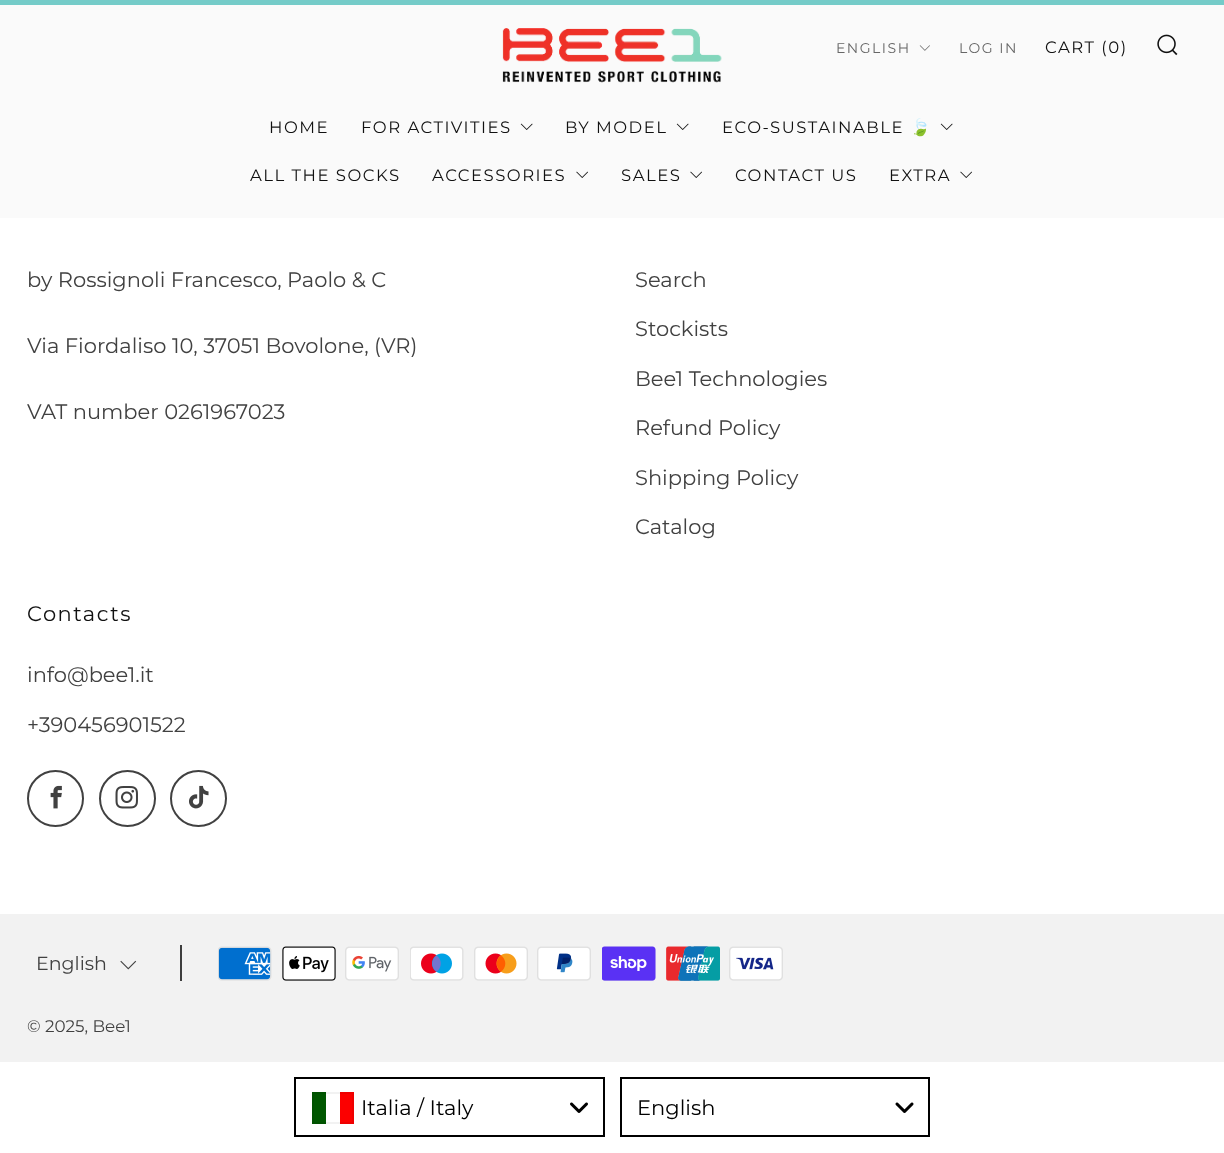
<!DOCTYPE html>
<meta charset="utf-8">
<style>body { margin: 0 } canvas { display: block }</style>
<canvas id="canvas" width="1224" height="1153"></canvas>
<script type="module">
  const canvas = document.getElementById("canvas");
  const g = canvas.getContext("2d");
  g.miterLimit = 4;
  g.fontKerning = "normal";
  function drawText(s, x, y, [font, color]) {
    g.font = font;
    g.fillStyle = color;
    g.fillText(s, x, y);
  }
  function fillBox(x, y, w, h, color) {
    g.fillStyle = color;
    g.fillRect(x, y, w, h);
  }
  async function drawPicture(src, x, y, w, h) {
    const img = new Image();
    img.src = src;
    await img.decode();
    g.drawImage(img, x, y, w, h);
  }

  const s1 = ["14px Montserrat", "#666666"];
  const s2 = ["16.5px Montserrat", "#111111"];
  const s3 = ["16.5px Noto Color Emoji", "#111111"];
  const s4 = ["21px Montserrat", "#414141"];
  const s5 = ["21px Montserrat", "#111111"];
  const s6 = ["19px Montserrat", "#414141"];
  const s7 = ["16.75px Montserrat", "#414141"];
  const s8 = ["21px Montserrat", "#000000"];

  fillBox(0, 0, 1224, 1153, "#FFFFFF");
  fillBox(0, 0, 1224, 5, "#74CBC8");
  fillBox(0, 5, 1224, 213, "#FAFAFA");
  await drawPicture("pic1.png", 502, 28, 220, 55);
  g.letterSpacing = "1.5px";
  drawText("ENGLISH", 836, 53, s1);
  await drawPicture("pic2.png", 919, 45, 11, 6);
  drawText("LOG IN", 959, 53, s1);
  drawText("CART (0)", 1045, 53, s2);
  await drawPicture("pic3.png", 1157, 34, 21, 22);
  drawText("HOME", 269, 133, s2);
  drawText("FOR ACTIVITIES", 361, 133, s2);
  await drawPicture("pic4.png", 520, 123, 13, 7);
  drawText("BY MODEL", 565, 133, s2);
  await drawPicture("pic4.png", 676, 123, 13, 7);
  drawText("ECO-SUSTAINABLE", 722, 133, s2);
  drawText("🍃", 910, 133, s3);
  await drawPicture("pic4.png", 940, 123, 13, 7);
  drawText("ALL THE SOCKS", 250, 181, s2);
  drawText("ACCESSORIES", 432, 181, s2);
  await drawPicture("pic5.png", 576, 171, 12, 7);
  drawText("SALES", 621, 181, s2);
  await drawPicture("pic5.png", 690, 171, 12, 7);
  drawText("CONTACT US", 735, 181, s2);
  drawText("EXTRA", 889, 181, s2);
  await drawPicture("pic5.png", 960, 171, 12, 7);
  g.letterSpacing = "0px";
  drawText("by Rossignoli Francesco, Paolo & C", 27, 287, s4);
  drawText("Via Fiordaliso 10, 37051 Bovolone, (VR)", 27, 353, s4);
  drawText("VAT number 0261967023", 27, 419, s4);
  drawText("Search", 635, 287, s4);
  drawText("Stockists", 635, 336, s4);
  drawText("Bee1 Technologies", 635, 386, s4);
  drawText("Refund Policy", 635, 435, s4);
  drawText("Shipping Policy", 635, 485, s4);
  drawText("Catalog", 635, 534, s4);
  g.letterSpacing = "1.5px";
  drawText("Contacts", 27, 621, s5);
  g.letterSpacing = "0px";
  drawText("info@bee1.it", 27, 682, s4);
  drawText("+390456901522", 27, 732, s4);
  g.beginPath();
  g.arc(55.5, 798.5, 27.5, 0, Math.PI * 2);
  g.strokeStyle = "#414141";
  g.lineWidth = 2;
  g.stroke();
  await drawPicture("pic6.png", 50, 785, 12, 24);
  g.beginPath();
  g.arc(127.5, 798.5, 27.5, 0, Math.PI * 2);
  g.stroke();
  await drawPicture("pic7.png", 115, 786, 23, 23);
  g.beginPath();
  g.arc(198.5, 798.5, 27.5, 0, Math.PI * 2);
  g.stroke();
  await drawPicture("pic8.png", 189, 785, 20, 24);
  fillBox(0, 914, 1224, 148, "#F2F2F2");
  drawText("English", 36, 970, s6);
  await drawPicture("pic9.png", 120, 960, 17, 10);
  fillBox(180, 945, 2, 36, "#3E3E3E");
  await drawPicture("pic10.png", 218, 946, 54, 35);
  await drawPicture("pic11.png", 282, 946, 54, 35);
  await drawPicture("pic12.png", 345, 946, 54, 35);
  await drawPicture("pic13.png", 410, 946, 54, 35);
  await drawPicture("pic14.png", 474, 946, 54, 35);
  await drawPicture("pic15.png", 537, 946, 54, 35);
  await drawPicture("pic16.png", 602, 946, 54, 35);
  await drawPicture("pic17.png", 666, 946, 54, 35);
  await drawPicture("pic18.png", 729, 946, 54, 35);
  drawText("© 2025, Bee1", 27, 1032, s7);
  await drawPicture("pic19.png", 570, 1102, 18, 11);
  g.strokeStyle = "#000000";
  g.strokeRect(295, 1078, 309, 58);
  fillBox(312, 1092, 14, 32, "#005700");
  fillBox(340, 1092, 14, 32, "#FC0000");
  g.strokeStyle = "rgba(0, 0, 0, 0.05)";
  g.strokeRect(313, 1093, 40, 30);
  drawText("Italia / Italy", 361, 1115, s8);
  await drawPicture("pic20.png", 895, 1102, 19, 11);
  g.strokeStyle = "#000000";
  g.strokeRect(621, 1078, 308, 58);
  drawText("English", 637, 1115, s8);
</script>
